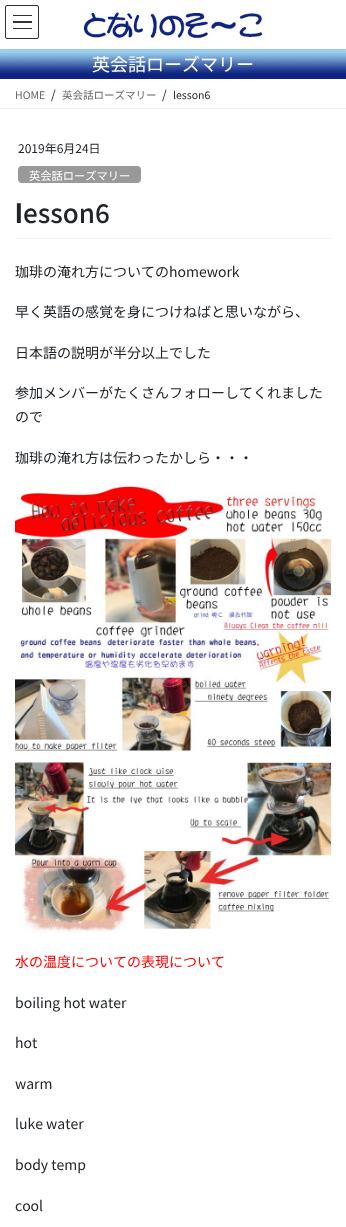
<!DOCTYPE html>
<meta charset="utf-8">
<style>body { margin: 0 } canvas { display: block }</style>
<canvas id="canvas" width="346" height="1227"></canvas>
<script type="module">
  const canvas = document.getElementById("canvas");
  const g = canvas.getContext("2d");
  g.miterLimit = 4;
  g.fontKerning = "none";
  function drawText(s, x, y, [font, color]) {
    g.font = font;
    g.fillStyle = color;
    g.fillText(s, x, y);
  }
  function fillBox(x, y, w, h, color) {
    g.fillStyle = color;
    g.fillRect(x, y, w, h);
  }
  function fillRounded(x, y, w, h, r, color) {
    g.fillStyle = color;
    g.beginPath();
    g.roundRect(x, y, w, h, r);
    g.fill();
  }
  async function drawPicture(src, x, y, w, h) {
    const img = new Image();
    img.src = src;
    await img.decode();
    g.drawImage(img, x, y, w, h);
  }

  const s1 = ["18px Noto Sans JP", "#FFFFFF"];
  const s2 = ["10.5px Noto Sans JP", "#666666"];
  const s3 = ["12px Noto Sans JP", "#212529"];
  const s4 = ["10.5px Noto Sans JP", "#212529"];
  const s5 = ["11.25px Noto Sans JP", "#FFFFFF"];
  const s6 = ["bold 26px Noto Sans", "#212529"];
  const s7 = ["500 26px Noto Sans JP", "#212529"];
  const s8 = ["14px Noto Sans JP", "#212529"];
  const s9 = ["14px Noto Sans JP", "#FF0000"];

  fillBox(0, 0, 346, 1227, "#FFFFFF");
  fillBox(0, 49, 346, 2, "#A2D9F6");
  await drawPicture("pic2.png", 0, 51, 346, 28);
  g.save();
  g.beginPath();
  g.rect(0, 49, 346, 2);
  g.clip();
  g.fillStyle = "rgba(0, 0, 0, 0.1)";
  g.filter = "blur(1.5px)";
  g.beginPath();
  g.rect(0, 1, 346, 49);
  g.fill();
  g.filter = "none";
  g.restore();
  await drawPicture("pic1.png", 80, 10, 186, 32);
  fillBox(13, 15, 19, 1, "#333333");
  fillBox(13, 21, 19, 2, "#333333");
  fillBox(13, 28, 19, 1, "#333333");
  g.beginPath();
  g.roundRect(5.5, 5.5, 33, 33, 1.5);
  g.strokeStyle = "#333333";
  g.stroke();
  drawText("英会話ローズマリー", 92, 71, s1);
  fillBox(0, 108, 346, 1, "#F2F2F2");
  drawText("HOME", 15, 99, s2);
  drawText("/", 51, 99, s3);
  drawText("英会話ローズマリー", 62, 99, s2);
  drawText("/", 162, 99, s3);
  drawText("lesson6", 173, 99, s4);
  fillBox(15, 238, 316, 1, "#F2F2F2");
  drawText("2019年6月24日", 18, 153, s3);
  fillRounded(18, 166, 123, 17, 4, "#999999");
  drawText("英会話ローズマリー", 29, 180, s5);
  drawText("l", 15, 223, s6);
  drawText("esson6", 23, 223, s7);
  drawText("珈琲の淹れ方についてのhomework", 15, 277, s8);
  drawText("早く英語の感覚を身につけねばと思いながら、", 15, 317, s8);
  drawText("日本語の説明が半分以上でした", 15, 358, s8);
  drawText("参加メンバーがたくさんフォローしてくれました", 15, 398, s8);
  drawText("ので", 15, 422, s8);
  drawText("珈琲の淹れ方は伝わったかしら・・・", 15, 463, s8);
  await drawPicture("pic3.png", 15, 486, 316, 447);
  drawText("水の温度についての表現について", 15, 967, s9);
  drawText("boiling hot water", 15, 1008, s8);
  drawText("hot", 15, 1048, s8);
  drawText("warm", 15, 1089, s8);
  drawText("luke water", 15, 1129, s8);
  drawText("body temp", 15, 1170, s8);
  drawText("cool", 15, 1211, s8);
</script>
